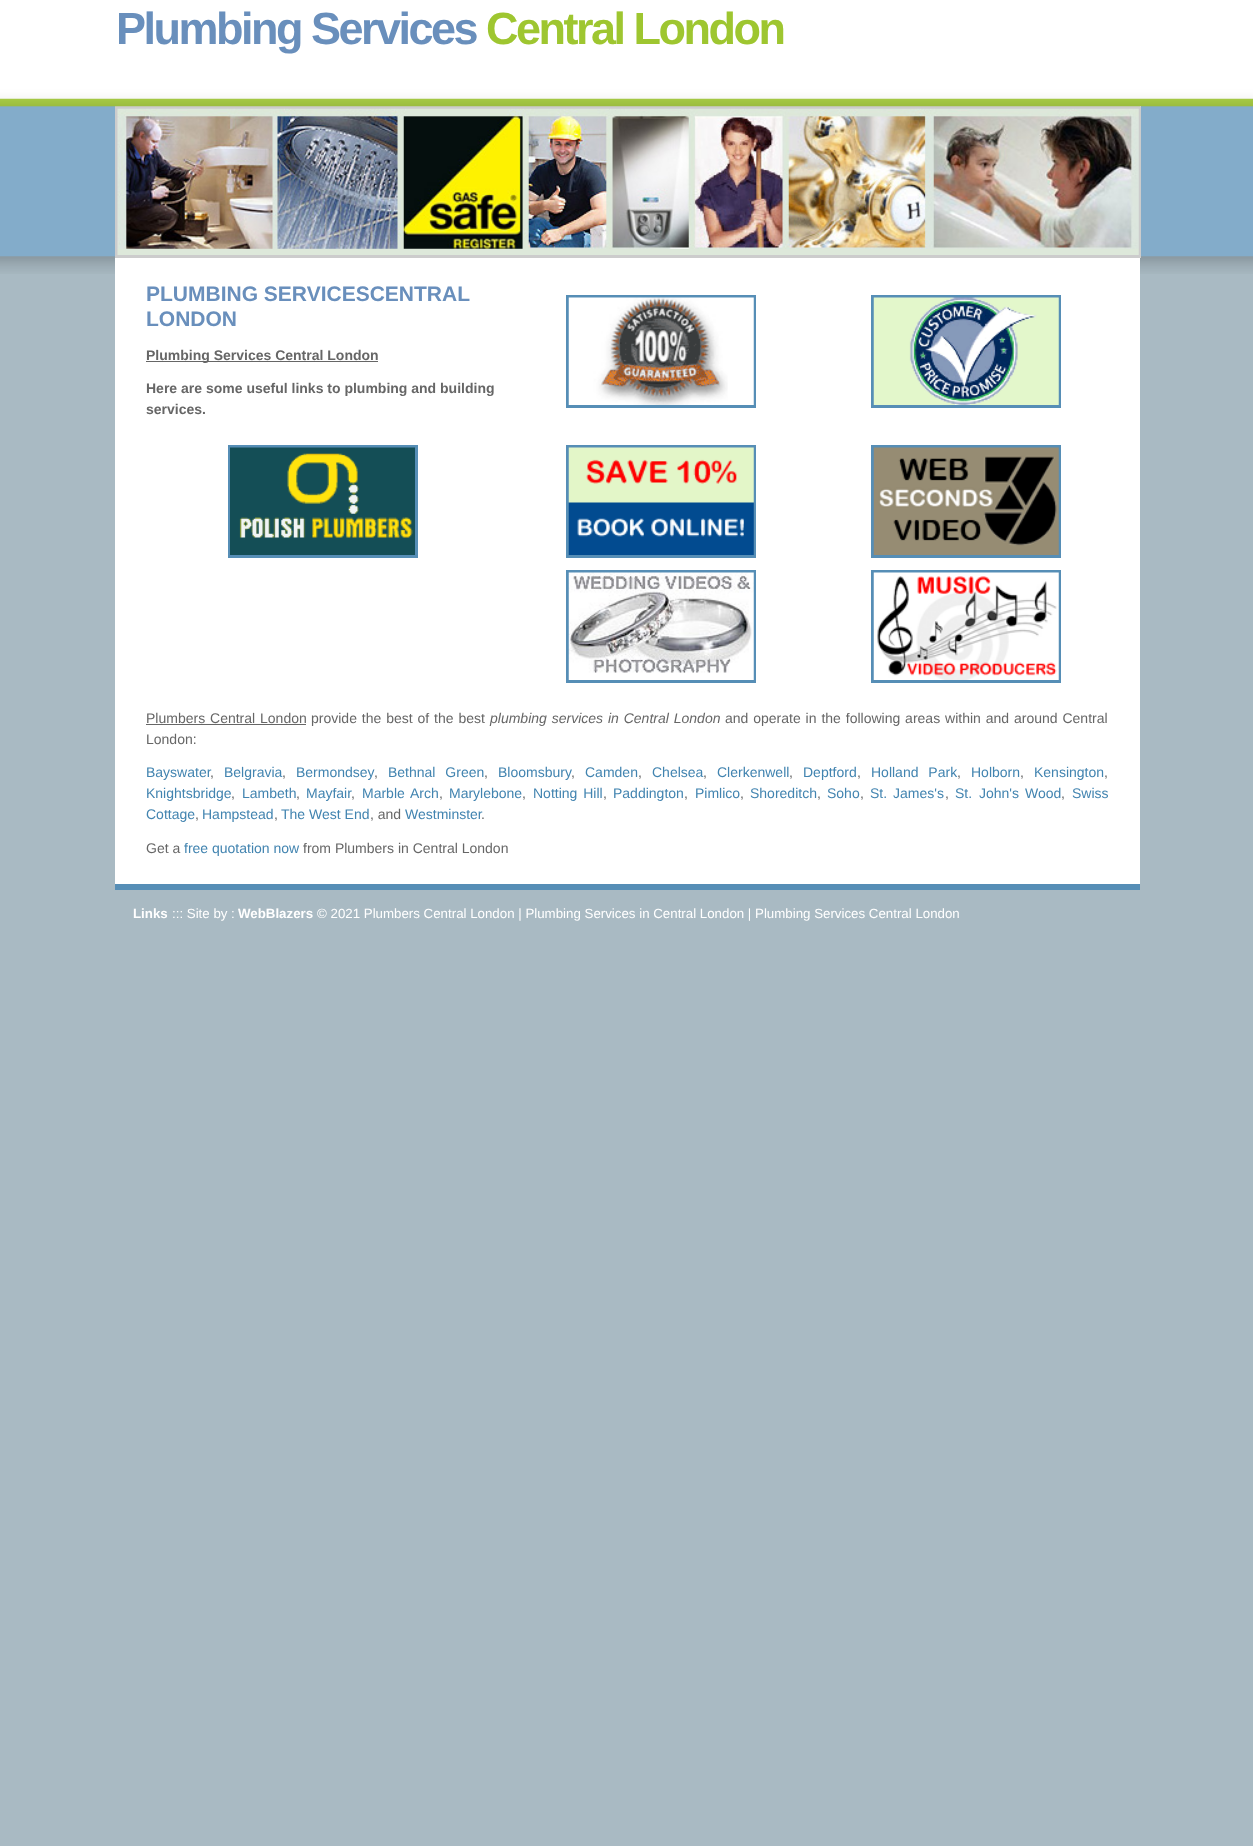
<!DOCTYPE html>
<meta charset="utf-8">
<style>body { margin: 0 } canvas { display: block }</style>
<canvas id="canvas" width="1253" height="1846"></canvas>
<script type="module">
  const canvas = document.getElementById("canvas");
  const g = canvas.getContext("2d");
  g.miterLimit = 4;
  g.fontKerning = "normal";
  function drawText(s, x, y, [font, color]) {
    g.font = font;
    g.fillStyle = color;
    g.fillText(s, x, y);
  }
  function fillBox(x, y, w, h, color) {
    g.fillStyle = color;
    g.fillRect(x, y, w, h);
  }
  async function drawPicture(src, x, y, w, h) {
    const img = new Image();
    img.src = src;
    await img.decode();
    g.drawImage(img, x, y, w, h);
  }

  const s1 = ["bold 45px Liberation Sans", "#698FBC"];
  const s2 = ["bold 45px Liberation Sans", "#9EC630"];
  const s3 = ["bold 21px Liberation Sans", "#698FBC"];
  const s4 = ["bold 14px Liberation Sans", "#666666"];
  const s5 = ["14px Liberation Sans", "#666666"];
  const s6 = ["italic 14px Liberation Sans", "#666666"];
  const s7 = ["14px Liberation Sans", "#4284B0"];
  const s8 = ["bold 13.3px Liberation Sans", "#FFFFFF"];
  const s9 = ["13.3px Liberation Sans", "#FFFFFF"];

  fillBox(0, 0, 1253, 1846, "#A9BAC3");
  await drawPicture("pic1.png", 0, 0, 1253, 274);
  fillBox(115, 258, 1025, 626, "#FFFFFF");
  g.strokeStyle = "#CCCCCC";
  g.lineWidth = 3;
  g.strokeRect(116.5, 107.5, 1023, 149);
  await drawPicture("pic2.png", 115, 0, 1025, 107);
  g.letterSpacing = "-2.5px";
  drawText("Plumbing Services", 116, 44, s1);
  drawText("Central London", 486, 44, s2);
  await drawPicture("pic3.png", 117, 108, 1022, 147);
  g.letterSpacing = "0px";
  drawText("PLUMBING SERVICESCENTRAL", 146, 301, s3);
  drawText("LONDON", 146, 326, s3);
  fillBox(146, 361, 232, 1, "#666666");
  drawText("Plumbing Services Central London", 146, 360, s4);
  drawText("Here are some useful links to plumbing and building", 146, 393, s4);
  drawText("services.", 146, 414, s4);
  g.strokeStyle = "#568EB6";
  g.strokeRect(567.5, 296.5, 187, 110);
  await drawPicture("pic4.png", 568, 297, 186, 108);
  g.strokeRect(872.5, 296.5, 187, 110);
  await drawPicture("pic5.png", 873, 297, 186, 108);
  g.strokeRect(229.5, 446.5, 187, 110);
  await drawPicture("pic6.png", 230, 447, 185, 108);
  g.strokeRect(567.5, 446.5, 187, 110);
  await drawPicture("pic7.png", 568, 447, 186, 108);
  g.strokeRect(872.5, 446.5, 187, 110);
  await drawPicture("pic8.png", 873, 447, 186, 108);
  g.strokeRect(567.5, 571.5, 187, 110);
  await drawPicture("pic9.png", 568, 572, 186, 108);
  g.strokeRect(872.5, 571.5, 187, 110);
  await drawPicture("pic10.png", 873, 572, 186, 108);
  g.wordSpacing = "1px";
  drawText("Plumbers Central London", 146, 723, s5);
  fillBox(146, 724, 160, 1, "#666666");
  drawText("provide the best of the best", 311, 723, s5);
  drawText("plumbing services in Central London", 490, 723, s6);
  drawText("and operate in the following areas within and around Central", 725, 723, s5);
  g.wordSpacing = "0px";
  drawText("London:", 146, 744, s5);
  drawText("Bayswater", 146, 777, s7);
  drawText(",", 210, 777, s5);
  drawText("Belgravia", 224, 777, s7);
  drawText(",", 282, 777, s5);
  drawText("Bermondsey", 296, 777, s7);
  drawText(",", 374, 777, s5);
  g.wordSpacing = "6px";
  drawText("Bethnal Green", 388, 777, s7);
  g.wordSpacing = "0px";
  drawText(",", 484, 777, s5);
  drawText("Bloomsbury", 498, 777, s7);
  drawText("Camden", 585, 777, s7);
  drawText("Chelsea", 652, 777, s7);
  drawText("Clerkenwell", 717, 777, s7);
  drawText("Deptford", 803, 777, s7);
  g.wordSpacing = "6px";
  drawText("Holland Park", 871, 777, s7);
  g.wordSpacing = "0px";
  drawText("Holborn", 971, 777, s7);
  drawText("Kensington", 1034, 777, s7);
  drawText(",", 571, 777, s5);
  drawText(",", 638, 777, s5);
  drawText(",", 703, 777, s5);
  drawText(",", 789, 777, s5);
  drawText(",", 857, 777, s5);
  drawText(",", 957, 777, s5);
  drawText(",", 1020, 777, s5);
  drawText(",", 1104, 777, s5);
  drawText("Knightsbridge", 146, 798, s7);
  drawText(",", 231, 798, s5);
  drawText("Lambeth", 242, 798, s7);
  drawText(",", 296, 798, s5);
  drawText("Mayfair", 306, 798, s7);
  drawText(",", 351, 798, s5);
  g.wordSpacing = "2px";
  drawText("Marble Arch", 362, 798, s7);
  g.wordSpacing = "0px";
  drawText(",", 439, 798, s5);
  drawText("Marylebone", 449, 798, s7);
  drawText(",", 522, 798, s5);
  g.wordSpacing = "2px";
  drawText("Notting Hill", 533, 798, s7);
  g.wordSpacing = "0px";
  drawText(",", 603, 798, s5);
  drawText("Paddington", 613, 798, s7);
  drawText(",", 684, 798, s5);
  drawText("Pimlico", 695, 798, s7);
  drawText(",", 740, 798, s5);
  drawText("Shoreditch", 750, 798, s7);
  drawText(",", 817, 798, s5);
  drawText("Soho", 827, 798, s7);
  drawText(",", 860, 798, s5);
  g.wordSpacing = "2px";
  drawText("St. James's", 870, 798, s7);
  g.wordSpacing = "0px";
  drawText(",", 945, 798, s5);
  g.wordSpacing = "3px";
  drawText("St. John's", 955, 798, s7);
  g.wordSpacing = "0px";
  drawText("Wood", 1025, 798, s7);
  drawText(",", 1061, 798, s5);
  drawText("Swiss", 1072, 798, s7);
  drawText("Cottage", 146, 819, s7);
  drawText(",", 195, 819, s5);
  drawText("Hampstead", 202, 819, s7);
  drawText(",", 274, 819, s5);
  drawText("The West End", 281, 819, s7);
  drawText(", and", 370, 819, s5);
  drawText("Westminster", 405, 819, s7);
  drawText(".", 481, 819, s5);
  drawText("Get a", 146, 853, s5);
  drawText("free quotation now", 184, 853, s7);
  drawText("from Plumbers in Central London", 303, 853, s5);
  fillBox(115, 884, 1025, 6, "#568EB6");
  drawText("Links", 133, 918, s8);
  drawText("::: Site by :", 172, 918, s9);
  drawText("WebBlazers", 238, 918, s8);
  drawText("© 2021 Plumbers Central London | Plumbing Services in Central London | Plumbing Services Central London", 317, 918, s9);
</script>
